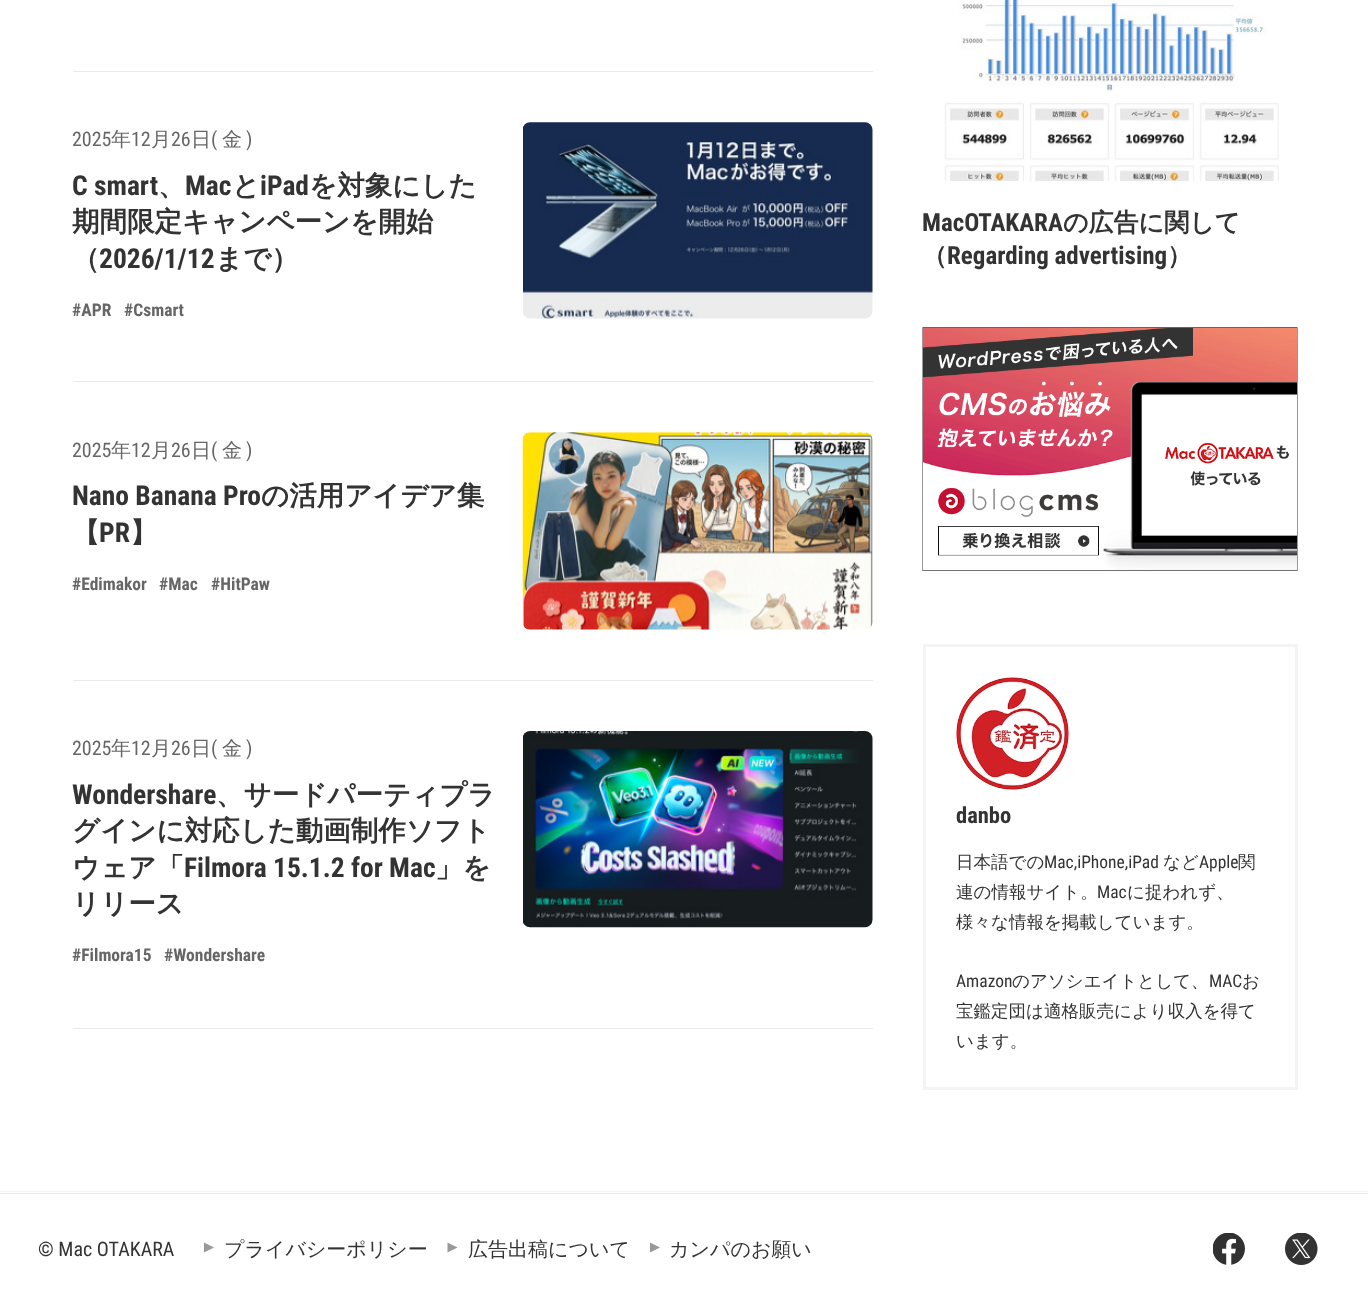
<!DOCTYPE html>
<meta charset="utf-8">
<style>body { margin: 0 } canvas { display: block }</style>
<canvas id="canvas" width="1368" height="1305"></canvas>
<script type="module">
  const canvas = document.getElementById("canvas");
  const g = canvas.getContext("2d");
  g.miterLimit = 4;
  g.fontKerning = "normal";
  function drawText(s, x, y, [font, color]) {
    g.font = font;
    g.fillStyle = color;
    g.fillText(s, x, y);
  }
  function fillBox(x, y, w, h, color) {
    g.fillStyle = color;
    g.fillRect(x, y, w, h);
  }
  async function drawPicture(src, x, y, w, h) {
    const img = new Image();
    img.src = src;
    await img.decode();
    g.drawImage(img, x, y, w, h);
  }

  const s1 = ["20px Roboto Condensed", "#666666"];
  const s2 = ["500 20px WenQuanYi Zen Hei", "#666666"];
  const s3 = ["bold 27.5px Roboto Condensed", "#333333"];
  const s4 = ["bold 27.5px WenQuanYi Zen Hei", "#333333"];
  const s5 = ["bold 17.5px Roboto Condensed", "#666666"];
  const s6 = ["bold 25px Roboto Condensed", "#333333"];
  const s7 = ["bold 25px WenQuanYi Zen Hei", "#333333"];
  const s8 = ["bold 22.5px Roboto Condensed", "#333333"];
  const s9 = ["500 17.5px WenQuanYi Zen Hei", "#333333"];
  const s10 = ["17.5px Roboto Condensed", "#333333"];
  const s11 = ["20px Roboto Condensed", "#333333"];
  const s12 = ["500 20px WenQuanYi Zen Hei", "#333333"];

  fillBox(0, 0, 1368, 1305, "#FFFFFF");
  fillBox(73, 71, 800, 1, "#EBEBEB");
  fillBox(73, 381, 800, 1, "#EBEBEB");
  drawText("2025", 72, 146, s1);
  drawText("年", 111, 146, s2);
  drawText("12", 131, 146, s1);
  drawText("月", 151, 146, s2);
  drawText("26", 171, 146, s1);
  drawText("日", 191, 146, s2);
  drawText("(", 211, 146, s1);
  drawText("金", 222, 146, s2);
  drawText(")", 246, 146, s1);
  drawText("C smart", 72, 195, s3);
  drawText("、", 158, 195, s4);
  drawText("Mac", 185, 195, s3);
  drawText("と", 232, 195, s4);
  drawText("iPad", 260, 195, s3);
  drawText("を対象にした", 309, 195, s4);
  drawText("期間限定キャンペーンを開始", 72, 231, s4);
  drawText("（", 72, 268, s4);
  drawText("2026/1/12", 99, 268, s3);
  drawText("まで）", 215, 268, s4);
  await drawPicture("pic1.png", 523, 122, 350, 197);
  drawText("#APR", 72, 316, s5);
  drawText("#Csmart", 124, 316, s5);
  fillBox(73, 680, 800, 1, "#EBEBEB");
  drawText("2025", 72, 457, s1);
  drawText("年", 111, 457, s2);
  drawText("12", 131, 457, s1);
  drawText("月", 151, 457, s2);
  drawText("26", 171, 457, s1);
  drawText("日", 191, 457, s2);
  drawText("(", 211, 457, s1);
  drawText("金", 222, 457, s2);
  drawText(")", 246, 457, s1);
  drawText("Nano Banana Pro", 72, 505, s3);
  drawText("の活用アイデア集", 261, 505, s4);
  drawText("【", 72, 542, s4);
  drawText("PR", 99, 542, s3);
  drawText("】", 130, 542, s4);
  await drawPicture("pic2.png", 522, 432, 351, 198);
  drawText("#Edimakor", 72, 590, s5);
  drawText("#Mac", 159, 590, s5);
  drawText("#HitPaw", 211, 590, s5);
  fillBox(73, 1028, 800, 1, "#EBEBEB");
  drawText("2025", 72, 755, s1);
  drawText("年", 111, 755, s2);
  drawText("12", 131, 755, s1);
  drawText("月", 151, 755, s2);
  drawText("26", 171, 755, s1);
  drawText("日", 191, 755, s2);
  drawText("(", 211, 755, s1);
  drawText("金", 222, 755, s2);
  drawText(")", 246, 755, s1);
  drawText("Wondershare", 72, 804, s3);
  drawText("、サードパーティプラ", 216, 804, s4);
  drawText("グインに対応した動画制作ソフト", 72, 840, s4);
  drawText("ウェア「", 72, 877, s4);
  drawText("Filmora 15.1.2 for Mac", 184, 877, s3);
  drawText("」を", 435, 877, s4);
  drawText("リリース", 72, 913, s4);
  await drawPicture("pic3.png", 523, 731, 350, 197);
  drawText("#Filmora15", 72, 961, s5);
  drawText("#Wondershare", 164, 961, s5);
  await drawPicture("pic4.png", 944, 0, 335, 181);
  drawText("MacOTAKARA", 922, 231, s6);
  drawText("の広告に関して", 1063, 231, s7);
  drawText("（", 922, 264, s7);
  drawText("Regarding advertising", 947, 264, s6);
  drawText("）", 1167, 264, s7);
  await drawPicture("pic5.png", 922, 327, 376, 244);
  g.strokeStyle = "#F4F4F4";
  g.lineWidth = 3;
  g.strokeRect(924.5, 645.5, 372, 443);
  await drawPicture("pic6.png", 956, 677, 113, 113);
  drawText("danbo", 956, 823, s8);
  drawText("日本語での", 956, 868, s9);
  drawText("Mac,iPhone,iPad", 1044, 868, s10);
  drawText("など", 1163, 868, s9);
  drawText("Apple", 1199, 868, s10);
  drawText("関", 1238, 868, s9);
  drawText("連の情報サイト。", 956, 898, s9);
  drawText("Mac", 1097, 898, s10);
  drawText("に捉われず、", 1127, 898, s9);
  drawText("様々な情報を掲載しています。", 956, 928, s9);
  drawText("Amazon", 956, 987, s10);
  drawText("のアソシエイトとして、", 1012, 987, s9);
  drawText("MAC", 1209, 987, s10);
  drawText("お", 1242, 987, s9);
  drawText("宝鑑定団は適格販売により収入を得て", 956, 1017, s9);
  drawText("います。", 956, 1047, s9);
  fillBox(0, 1191, 1368, 1, "#F4F4F4");
  fillBox(0, 1193, 1368, 1, "#EBEBEB");
  drawText("© Mac OTAKARA", 38, 1256, s11);
  g.fillStyle = "#999999";
  g.beginPath();
  g.moveTo(204, 1252.5);
  g.lineTo(204, 1242.5);
  g.lineTo(214, 1247.5);
  g.closePath();
  g.fill();
  drawText("プライバシーポリシー", 224, 1256, s12);
  g.fillStyle = "#999999";
  g.beginPath();
  g.moveTo(447.5, 1252.5);
  g.lineTo(447.5, 1242.5);
  g.lineTo(457.5, 1247.5);
  g.closePath();
  g.fill();
  drawText("広告出稿について", 468, 1256, s12);
  g.fillStyle = "#999999";
  g.beginPath();
  g.moveTo(650, 1252.5);
  g.lineTo(650, 1242.5);
  g.lineTo(660, 1247.5);
  g.closePath();
  g.fill();
  drawText("カンパのお願い", 669, 1256, s12);
  await drawPicture("pic7.png", 1213, 1233, 32, 32);
  await drawPicture("pic8.png", 1285, 1233, 33, 32);
</script>
